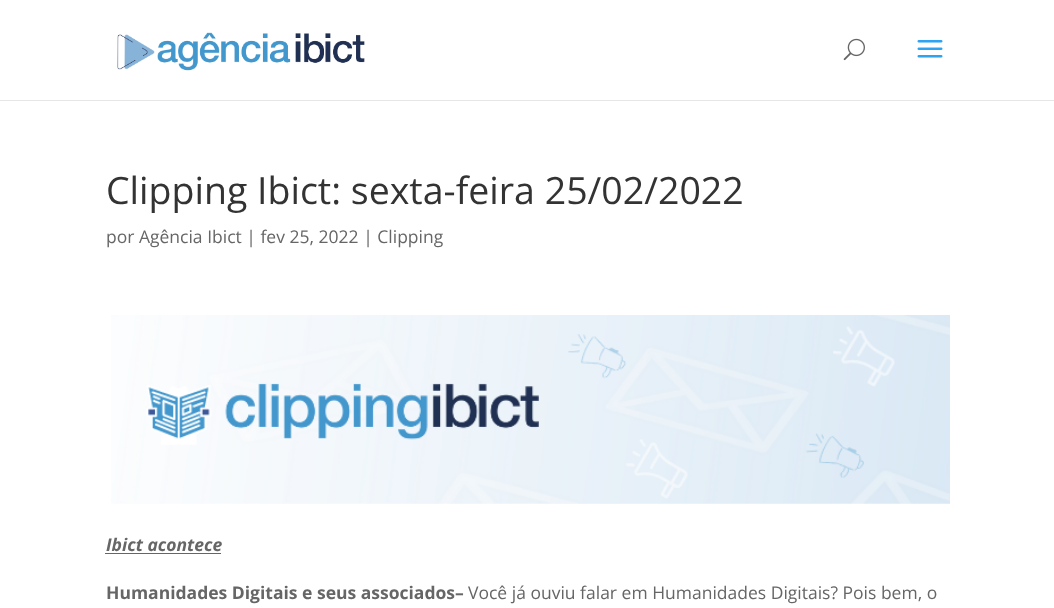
<!DOCTYPE html>
<meta charset="utf-8">
<style>body { margin: 0 } canvas { display: block }</style>
<canvas id="canvas" width="1054" height="608"></canvas>
<script type="module">
  const canvas = document.getElementById("canvas");
  const g = canvas.getContext("2d");
  g.miterLimit = 4;
  g.fontKerning = "normal";
  function drawText(s, x, y, [font, color]) {
    g.font = font;
    g.fillStyle = color;
    g.fillText(s, x, y);
  }
  function fillBox(x, y, w, h, color) {
    g.fillStyle = color;
    g.fillRect(x, y, w, h);
  }
  async function drawPicture(src, x, y, w, h) {
    const img = new Image();
    img.src = src;
    await img.decode();
    g.drawImage(img, x, y, w, h);
  }

  const s1 = ["37.5px Open Sans", "#333333"];
  const s2 = ["17.5px Open Sans", "#666666"];
  const s3 = ["italic bold 17.5px Open Sans", "#666666"];
  const s4 = ["bold 17.5px Open Sans", "#666666"];

  fillBox(0, 0, 1054, 608, "#FFFFFF");
  fillBox(0, 100, 1054, 1, "#E6E6E6");
  await drawPicture("pic1.png", 117, 32, 248, 39);
  await drawPicture("pic2.png", 843, 38, 22, 23);
  await drawPicture("pic3.png", 917, 40, 26, 18);
  drawText("Clipping Ibict: sexta-feira 25/02/2022", 106, 204, s1);
  drawText("por Agência Ibict | fev 25, 2022 | Clipping", 106, 243, s2);
  await drawPicture("pic4.png", 111, 315, 839, 189);
  drawText("Ibict acontece", 106, 551, s3);
  fillBox(105, 553, 116, 1, "#666666");
  drawText("Humanidades Digitais e seus associados–", 106, 599, s4);
  drawText("Você já ouviu falar em Humanidades Digitais? Pois bem, o", 468, 599, s2);
</script>
